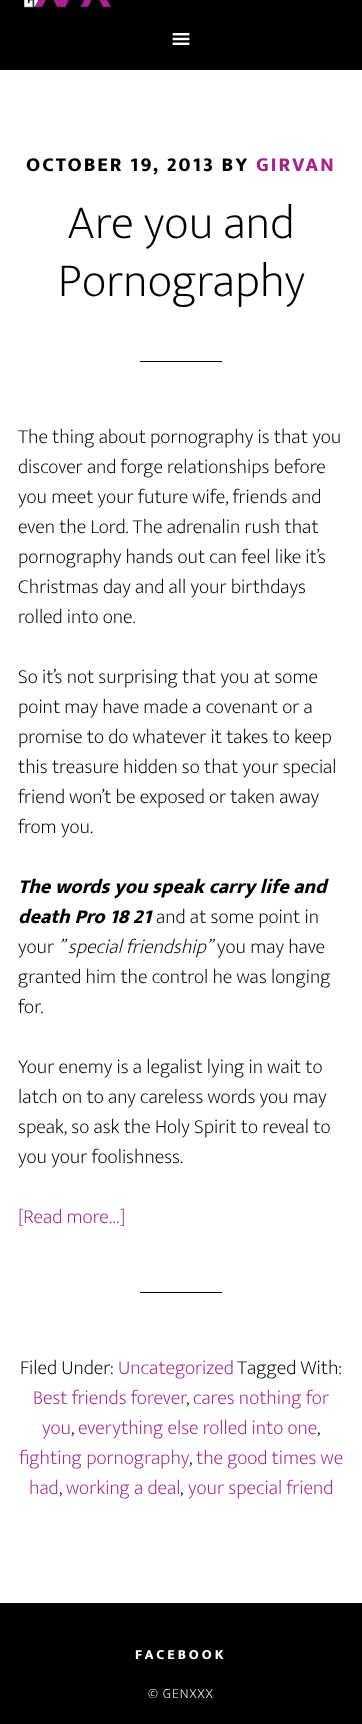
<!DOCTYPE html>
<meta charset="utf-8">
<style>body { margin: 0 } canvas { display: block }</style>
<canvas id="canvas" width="362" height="1724"></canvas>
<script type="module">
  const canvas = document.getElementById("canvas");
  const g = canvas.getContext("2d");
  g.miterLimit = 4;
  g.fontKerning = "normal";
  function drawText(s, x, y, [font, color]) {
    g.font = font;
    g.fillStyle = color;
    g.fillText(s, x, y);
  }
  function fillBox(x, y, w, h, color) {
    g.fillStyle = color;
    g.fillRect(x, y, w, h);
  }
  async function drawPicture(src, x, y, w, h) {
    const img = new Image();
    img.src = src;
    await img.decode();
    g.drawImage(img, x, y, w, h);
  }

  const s1 = ["800 20px Ek Mukta", "#000000"];
  const s2 = ["800 20px Ek Mukta", "#A6228E"];
  const s3 = ["200 48px Ek Mukta", "#000000"];
  const s4 = ["200 20px Ek Mukta", "#000000"];
  const s5 = ["italic 800 20px Ek Mukta", "#000000"];
  const s6 = ["italic 200 20px Ek Mukta", "#000000"];
  const s7 = ["200 20px Ek Mukta", "#A6228E"];
  const s8 = ["800 14px Ek Mukta", "#FFFFFF"];
  const s9 = ["200 14px Ek Mukta", "#FFFFFF"];

  fillBox(0, 0, 362, 1724, "#FFFFFF");
  fillBox(0, 0, 362, 70, "#000000");
  await drawPicture("pic1.png", 24, 0, 88, 8);
  await drawPicture("pic2.png", 172, 33, 18, 12);
  g.letterSpacing = "2px";
  drawText("OCTOBER 19, 2013 BY", 26, 171, s1);
  drawText("GIRVAN", 256, 171, s2);
  g.letterSpacing = "0px";
  drawText("Are you and", 67, 238, s3);
  drawText("Pornography", 58, 296, s3);
  fillBox(140, 361, 82, 1, "#000000");
  drawText("The thing about pornography is that you", 18, 443, s4);
  drawText("discover and forge relationships before", 18, 473, s4);
  drawText("you meet your future wife, friends and", 18, 503, s4);
  drawText("even the Lord. The adrenalin rush that", 18, 533, s4);
  drawText("pornography hands out can feel like it’s", 18, 563, s4);
  drawText("Christmas day and all your birthdays", 18, 593, s4);
  drawText("rolled into one.", 18, 623, s4);
  drawText("So it’s not surprising that you at some", 18, 683, s4);
  drawText("point may have made a covenant or a", 18, 713, s4);
  drawText("promise to do whatever it takes to keep", 18, 743, s4);
  drawText("this treasure hidden so that your special", 18, 773, s4);
  drawText("friend won’t be exposed or taken away", 18, 803, s4);
  drawText("from you.", 18, 833, s4);
  drawText("The words you speak carry life and", 18, 893, s5);
  drawText("death Pro 18 21", 18, 923, s5);
  drawText("and at some point in", 156, 923, s4);
  drawText("your", 18, 953, s4);
  drawText("” special friendship”", 58, 953, s6);
  drawText("you may have", 217, 953, s4);
  drawText("granted him the control he was longing", 18, 983, s4);
  drawText("for.", 18, 1013, s4);
  drawText("Your enemy is a legalist lying in wait to", 18, 1073, s4);
  drawText("latch on to any careless words you may", 18, 1103, s4);
  drawText("speak, so ask the Holy Spirit to reveal to", 18, 1133, s4);
  drawText("you your foolishness.", 18, 1163, s4);
  drawText("[Read more…]", 18, 1223, s7);
  fillBox(140, 1292, 82, 1, "#000000");
  drawText("Filed Under:", 20, 1374, s4);
  drawText("Uncategorized", 118, 1374, s7);
  drawText("Tagged With:", 237, 1374, s4);
  drawText("Best friends forever", 33, 1404, s7);
  drawText(",", 186, 1404, s4);
  drawText("cares nothing for", 193, 1404, s7);
  drawText("you", 42, 1434, s7);
  drawText(",", 71, 1434, s4);
  drawText("everything else rolled into one", 78, 1434, s7);
  drawText(",", 317, 1434, s4);
  drawText("fighting pornography", 19, 1464, s7);
  drawText(",", 189, 1464, s4);
  drawText("the good times we", 196, 1464, s7);
  drawText("had", 29, 1494, s7);
  drawText(",", 59, 1494, s4);
  drawText("working a deal", 66, 1494, s7);
  drawText(",", 180, 1494, s4);
  drawText("your special friend", 188, 1494, s7);
  fillBox(0, 1603, 362, 121, "#000000");
  g.letterSpacing = "3px";
  drawText("FACEBOOK", 135, 1659, s8);
  g.letterSpacing = "1px";
  drawText("© GENXXX", 148, 1698, s9);
</script>
